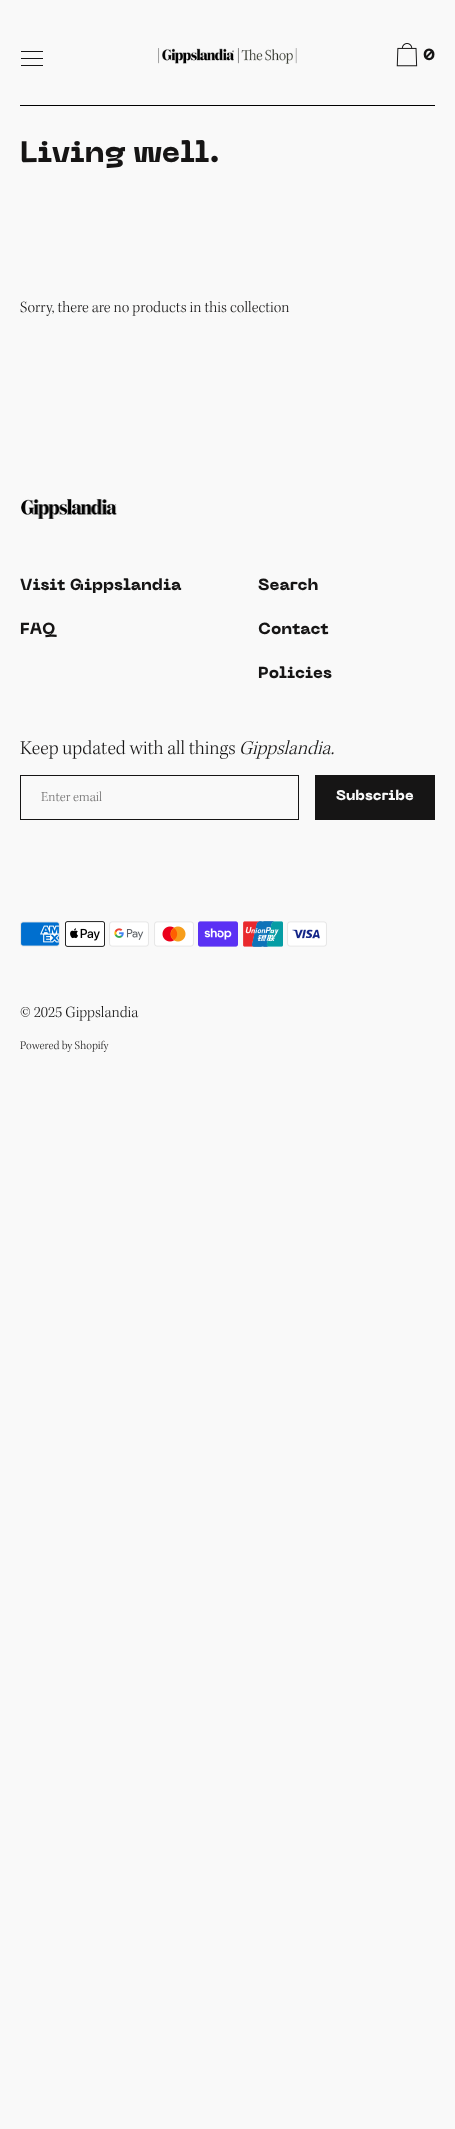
<!DOCTYPE html>
<meta charset="utf-8">
<style>body { margin: 0 } canvas { display: block }</style>
<canvas id="canvas" width="455" height="2129"></canvas>
<script type="module">
  const canvas = document.getElementById("canvas");
  const g = canvas.getContext("2d");
  g.miterLimit = 4;
  g.fontKerning = "normal";
  function drawText(s, x, y, [font, color]) {
    g.font = font;
    g.fillStyle = color;
    g.fillText(s, x, y);
  }
  function fillBox(x, y, w, h, color) {
    g.fillStyle = color;
    g.fillRect(x, y, w, h);
  }
  async function drawPicture(src, x, y, w, h) {
    const img = new Image();
    img.src = src;
    await img.decode();
    g.drawImage(img, x, y, w, h);
  }

  const s1 = ["800 16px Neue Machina", "#161515"];
  const s2 = ["800 29.5px Neue Machina", "#161515"];
  const s3 = ["300 16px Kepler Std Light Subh", "#161515"];
  const s4 = ["300 20px Kepler Std Light Subh", "#161515"];
  const s5 = ["italic 300 20px Kepler Std Light Subh", "#161515"];
  const s6 = ["300 14px Kepler Std Light Subh", "#717070"];
  const s7 = ["800 14px Neue Machina", "#F9F9F9"];
  const s8 = ["300 12px Kepler Std Light Subh", "#161515"];

  fillBox(0, 0, 455, 2129, "#F9F9F9");
  await drawPicture("pic1.png", 21, 51, 22, 15);
  await drawPicture("pic2.png", 158, 48, 139, 16);
  await drawPicture("pic3.png", 396, 43, 22, 24);
  drawText("0", 423, 60, s1);
  fillBox(20, 105, 415, 1, "#000000");
  drawText("Living well.", 20, 162, s2);
  drawText("Sorry, there are no products in this collection", 20, 312, s3);
  await drawPicture("pic4.png", 21, 498, 96, 21);
  drawText("Visit Gippslandia", 20, 590, s1);
  drawText("FAQ", 20, 634, s1);
  drawText("Search", 258, 590, s1);
  drawText("Contact", 258, 634, s1);
  drawText("Policies", 258, 678, s1);
  drawText("Keep updated with all things", 20, 754, s4);
  drawText("Gippslandia.", 239, 754, s5);
  g.strokeStyle = "#161515";
  g.strokeRect(20.5, 775.5, 278, 44);
  drawText("Enter email", 41, 801, s6);
  fillBox(315, 775, 120, 45, "#161515");
  drawText("Subscribe", 336, 800, s7);
  await drawPicture("pic5.png", 20, 921, 40, 26);
  await drawPicture("pic6.png", 65, 921, 40, 26);
  await drawPicture("pic7.png", 109, 921, 40, 26);
  await drawPicture("pic8.png", 154, 921, 40, 26);
  await drawPicture("pic9.png", 198, 921, 40, 26);
  await drawPicture("pic10.png", 243, 921, 40, 26);
  await drawPicture("pic11.png", 287, 921, 40, 26);
  drawText("© 2025 Gippslandia", 20, 1017, s3);
  drawText("Powered by Shopify", 20, 1049, s8);
</script>
